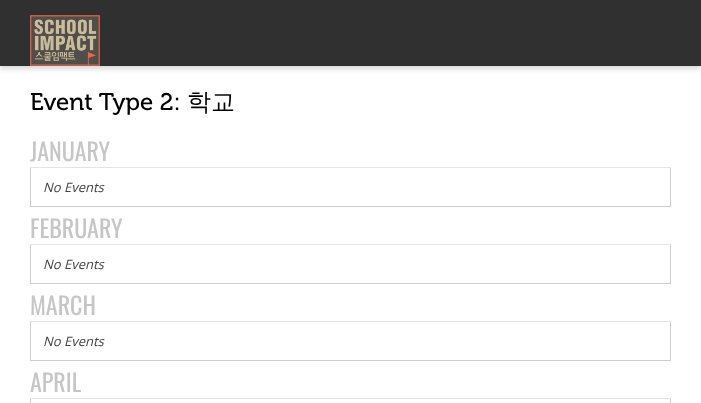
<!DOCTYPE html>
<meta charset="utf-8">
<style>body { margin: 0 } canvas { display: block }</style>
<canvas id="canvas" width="701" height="403"></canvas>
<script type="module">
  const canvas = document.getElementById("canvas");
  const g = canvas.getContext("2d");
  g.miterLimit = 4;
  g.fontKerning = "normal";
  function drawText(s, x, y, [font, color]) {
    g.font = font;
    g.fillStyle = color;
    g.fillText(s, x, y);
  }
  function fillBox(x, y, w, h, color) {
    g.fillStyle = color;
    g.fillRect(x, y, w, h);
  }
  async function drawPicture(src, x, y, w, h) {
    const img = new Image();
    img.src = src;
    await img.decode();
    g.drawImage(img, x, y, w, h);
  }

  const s1 = ["24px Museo", "#000000"];
  const s2 = ["500 24px WenQuanYi Zen Hei", "#000000"];
  const s3 = ["24px Oswald", "#C6C6C6"];
  const s4 = ["italic 13px Open Sans", "#444444"];

  fillBox(0, 0, 701, 403, "#FFFFFF");
  g.fillStyle = "rgba(0, 0, 0, 0.1)";
  g.filter = "blur(2.5px)";
  g.beginPath();
  g.rect(0, 3, 701, 66);
  g.fill();
  g.filter = "none";
  g.fillStyle = "rgba(0, 0, 0, 0.05)";
  g.filter = "blur(2.5px)";
  g.beginPath();
  g.rect(0, 3, 701, 66);
  g.fill();
  g.filter = "none";
  fillBox(0, 0, 701, 66, "#303030");
  await drawPicture("pic1.png", 30, 15, 70, 51);
  drawText("Event Type 2:", 30, 110, s1);
  drawText("학교", 187, 110, s2);
  fillBox(30, 167, 641, 1, "#E5E5E5");
  drawText("JANUARY", 30, 161, s3);
  fillBox(670, 168, 1, 39, "#CDCDCD");
  fillBox(30, 206, 641, 1, "#CDCDCD");
  fillBox(30, 168, 1, 38, "#CDCDCD");
  drawText("No Events", 43, 192, s4);
  fillBox(30, 244, 641, 1, "#E5E5E5");
  drawText("FEBRUARY", 30, 238, s3);
  fillBox(670, 245, 1, 39, "#CDCDCD");
  fillBox(30, 283, 641, 1, "#CDCDCD");
  fillBox(30, 245, 1, 38, "#CDCDCD");
  drawText("No Events", 43, 269, s4);
  fillBox(30, 321, 641, 1, "#E5E5E5");
  drawText("MARCH", 30, 315, s3);
  fillBox(670, 322, 1, 39, "#CDCDCD");
  fillBox(30, 360, 641, 1, "#CDCDCD");
  fillBox(30, 322, 1, 38, "#CDCDCD");
  drawText("No Events", 43, 346, s4);
  fillBox(30, 398, 641, 1, "#E5E5E5");
  drawText("APRIL", 30, 392, s3);
  fillBox(670, 399, 1, 4, "#CDCDCD");
  fillBox(30, 399, 1, 4, "#CDCDCD");
</script>
